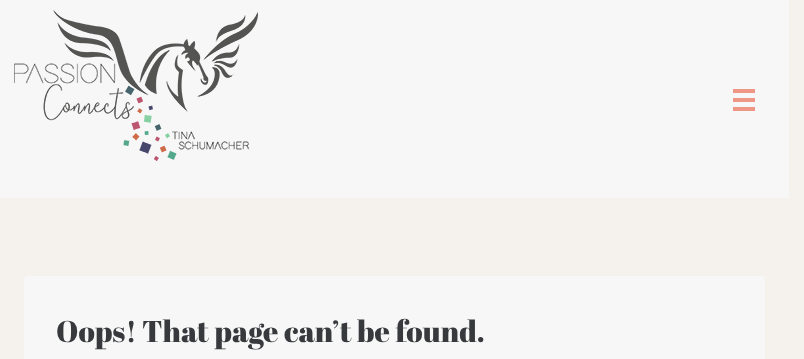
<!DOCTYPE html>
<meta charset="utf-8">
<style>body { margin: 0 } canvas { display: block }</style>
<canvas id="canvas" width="804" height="359"></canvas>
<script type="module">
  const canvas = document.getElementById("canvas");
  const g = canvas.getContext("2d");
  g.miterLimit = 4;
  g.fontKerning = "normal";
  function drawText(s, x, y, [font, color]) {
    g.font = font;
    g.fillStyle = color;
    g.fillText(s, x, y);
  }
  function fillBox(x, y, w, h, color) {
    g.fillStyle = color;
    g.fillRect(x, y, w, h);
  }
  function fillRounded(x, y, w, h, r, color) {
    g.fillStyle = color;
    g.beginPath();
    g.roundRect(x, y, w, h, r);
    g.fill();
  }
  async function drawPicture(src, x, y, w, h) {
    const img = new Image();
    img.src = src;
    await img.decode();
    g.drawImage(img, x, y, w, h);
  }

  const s1 = ["30px Abril Fatface", "#37393D"];

  fillBox(0, 0, 804, 359, "#F5F1ED");
  fillBox(0, 0, 789, 198, "#F7F7F7");
  await drawPicture("pic1.png", 14, 10, 244, 151);
  fillBox(733, 89, 22, 4, "#EE9786");
  fillBox(733, 98, 22, 4, "#EE9786");
  fillBox(733, 107, 22, 4, "#EE9786");
  fillRounded(24, 276, 741, 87, 4, "#F7F7F7");
  drawText("Oops! That page can’t be found.", 56, 342, s1);
</script>
